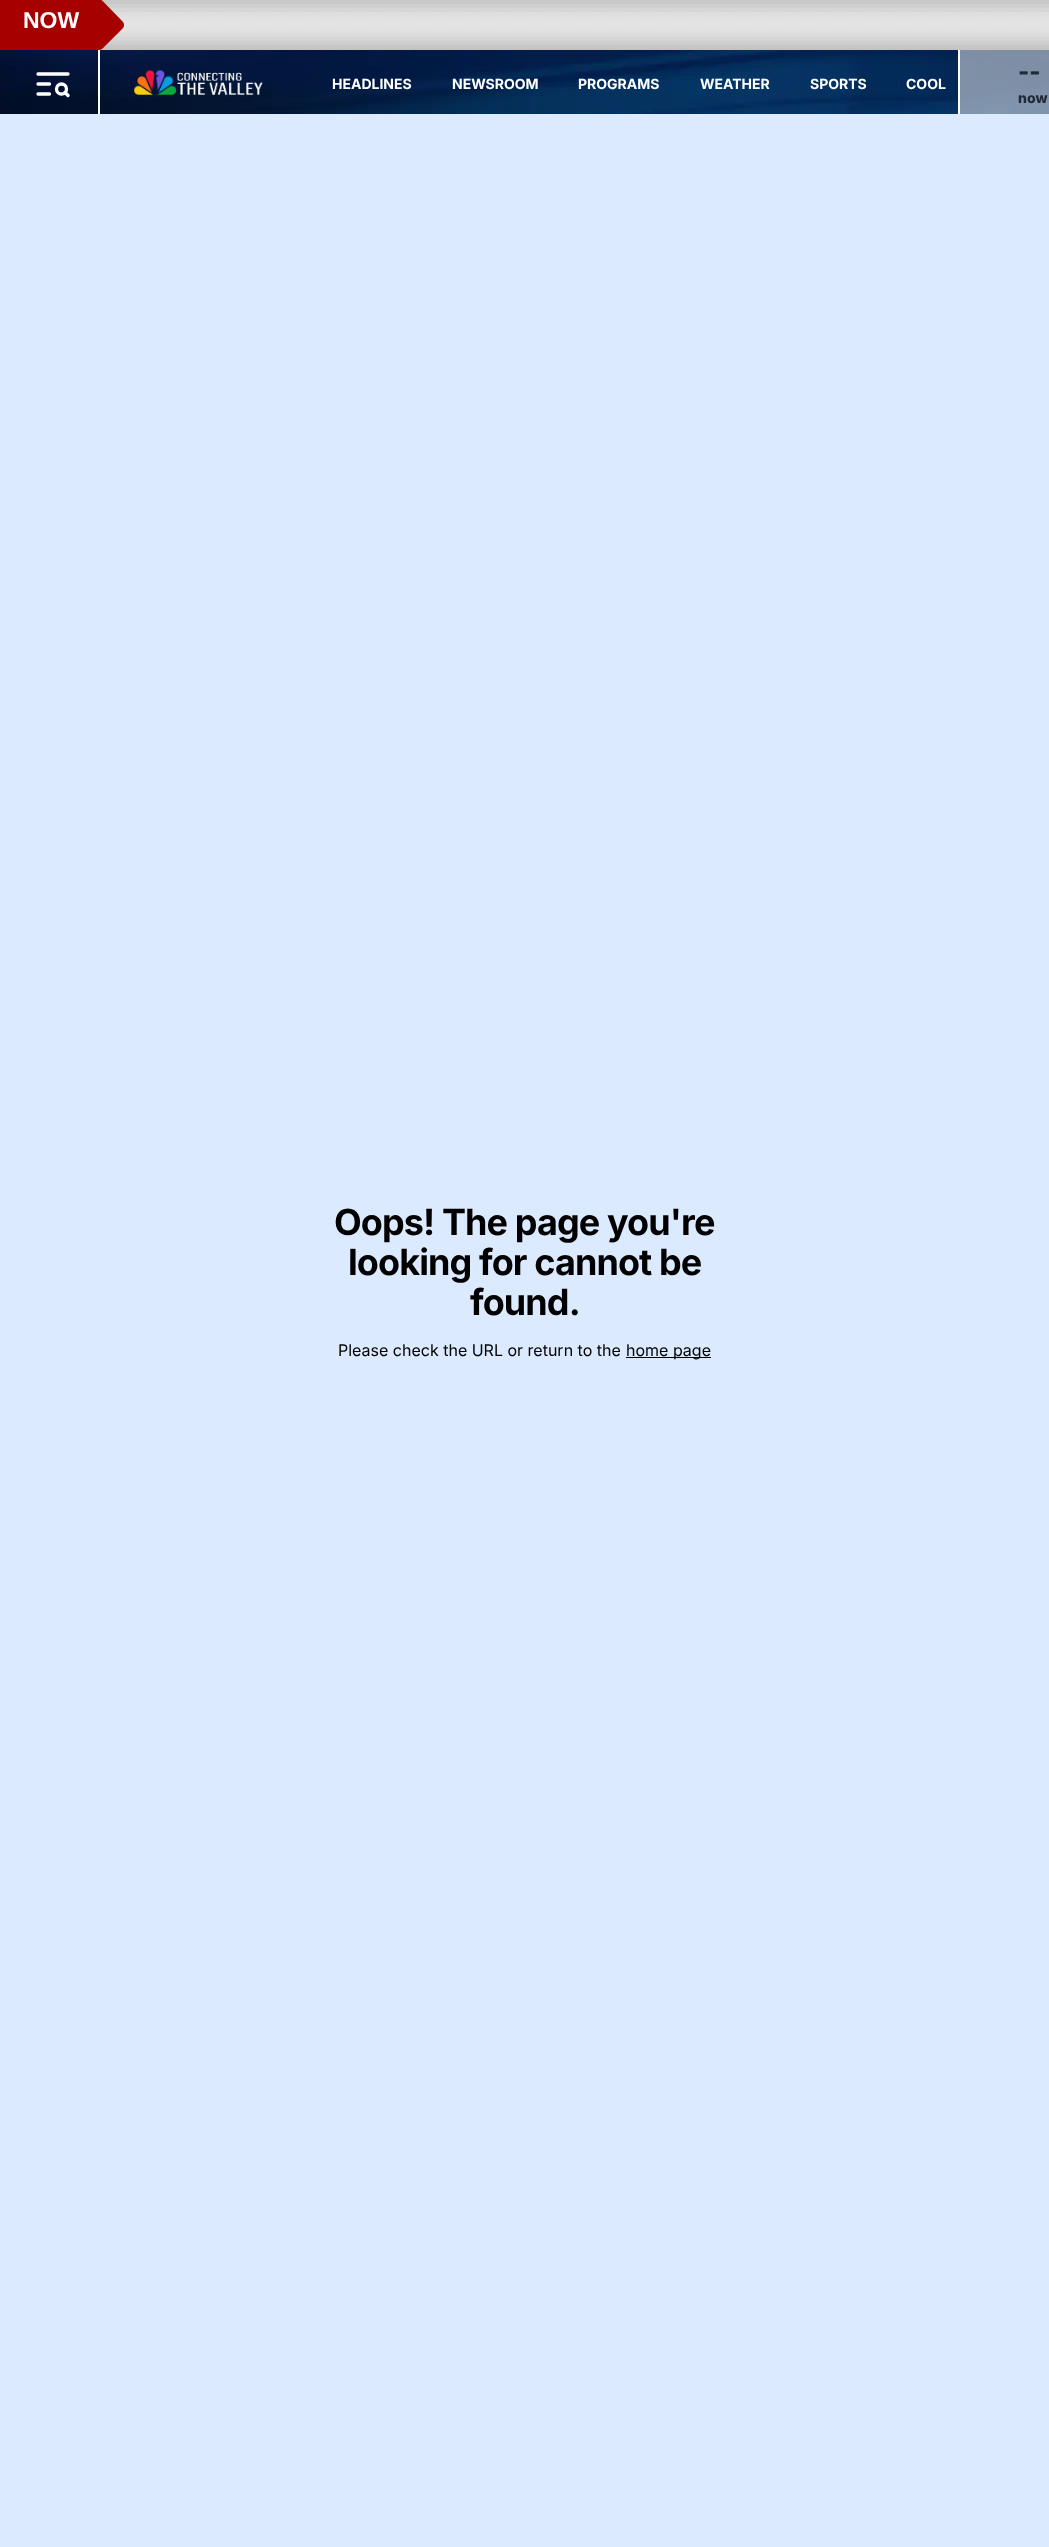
<!DOCTYPE html>
<meta charset="utf-8">
<style>body { margin: 0 } canvas { display: block }</style>
<canvas id="canvas" width="1049" height="2547"></canvas>
<script type="module">
  const canvas = document.getElementById("canvas");
  const g = canvas.getContext("2d");
  g.miterLimit = 4;
  g.fontKerning = "normal";
  function drawText(s, x, y, [font, color]) {
    g.font = font;
    g.fillStyle = color;
    g.fillText(s, x, y);
  }
  function fillBox(x, y, w, h, color) {
    g.fillStyle = color;
    g.fillRect(x, y, w, h);
  }
  async function drawPicture(src, x, y, w, h) {
    const img = new Image();
    img.src = src;
    await img.decode();
    g.drawImage(img, x, y, w, h);
  }

  const s1 = ["bold 23px Liberation Sans", "#FFFFFF"];
  const s2 = ["bold 14px Inter", "#FFFFFF"];
  const s3 = ["800 24px Inter", "#1F2937"];
  const s4 = ["800 14px Inter", "#1F2937"];
  const s5 = ["bold 36px Inter", "#000000"];
  const s6 = ["16px Inter", "#000000"];

  fillBox(0, 0, 1049, 2547, "#DBEAFE");
  await drawPicture("pic1.png", 99, 0, 950, 50);
  g.fillStyle = "#A60000";
  g.beginPath();
  g.moveTo(18, 45);
  g.lineTo(18, 5);
  g.lineTo(99, 5);
  g.lineTo(119, 25);
  g.lineTo(99, 45);
  g.closePath();
  g.fill();
  g.beginPath();
  g.moveTo(18, 45);
  g.lineTo(18, 4.5);
  g.lineTo(99, 4.5);
  g.lineTo(119, 25);
  g.lineTo(99, 45);
  g.closePath();
  g.strokeStyle = "#A60000";
  g.lineWidth = 10.1;
  g.lineCap = "round";
  g.lineJoin = "round";
  g.stroke();
  fillBox(0, 0, 18, 50, "#A60000");
  drawText("NOW", 23, 28, s1);
  await drawPicture("pic2.png", 0, 50, 1049, 64);
  g.beginPath();
  g.moveTo(68, 74);
  g.lineTo(38, 74);
  g.moveTo(49.5, 84);
  g.lineTo(38, 84);
  g.moveTo(49.5, 94);
  g.lineTo(38, 94);
  g.strokeStyle = "#FFFFFF";
  g.lineWidth = 3.3;
  g.stroke();
  g.beginPath();
  g.arc(61.5, 89, 5, 0, Math.PI * 2);
  g.stroke();
  g.beginPath();
  g.moveTo(68, 95.5);
  g.lineTo(65, 92.5);
  g.stroke();
  fillBox(98, 50, 2, 64, "#FFFFFF");
  await drawPicture("pic3.png", 134, 69, 129, 26);
  drawText("HEADLINES", 332, 89, s2);
  drawText("NEWSROOM", 452, 89, s2);
  drawText("PROGRAMS", 578, 89, s2);
  drawText("WEATHER", 700, 89, s2);
  drawText("SPORTS", 810, 89, s2);
  drawText("COOL", 906, 89, s2);
  fillBox(960, 50, 89, 64, "rgba(229, 231, 235, 0.55)");
  fillBox(958, 50, 2, 64, "#FFFFFF");
  drawText("--", 1018, 80, s3);
  drawText("now", 1018, 103, s4);
  g.letterSpacing = "-0.9px";
  drawText("Oops! The page you're", 334, 1235, s5);
  drawText("looking for cannot be", 348, 1275, s5);
  drawText("found.", 470, 1315, s5);
  g.letterSpacing = "0px";
  drawText("Please check the URL or return to the", 338, 1356, s6);
  fillBox(626, 1357, 85, 1, "#000000");
  drawText("home page", 626, 1356, s6);
</script>
